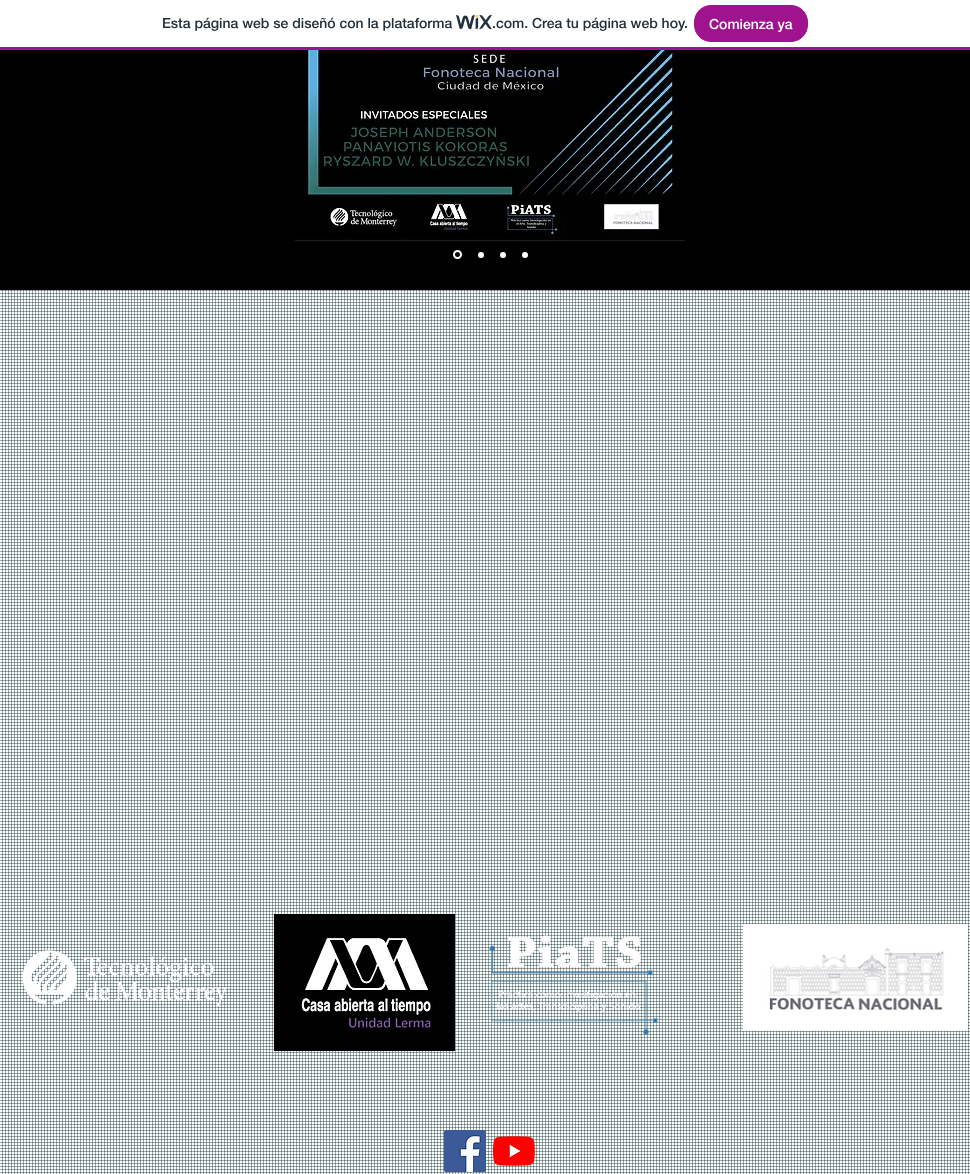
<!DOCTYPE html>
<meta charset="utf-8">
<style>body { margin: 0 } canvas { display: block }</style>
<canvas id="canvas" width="970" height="1174"></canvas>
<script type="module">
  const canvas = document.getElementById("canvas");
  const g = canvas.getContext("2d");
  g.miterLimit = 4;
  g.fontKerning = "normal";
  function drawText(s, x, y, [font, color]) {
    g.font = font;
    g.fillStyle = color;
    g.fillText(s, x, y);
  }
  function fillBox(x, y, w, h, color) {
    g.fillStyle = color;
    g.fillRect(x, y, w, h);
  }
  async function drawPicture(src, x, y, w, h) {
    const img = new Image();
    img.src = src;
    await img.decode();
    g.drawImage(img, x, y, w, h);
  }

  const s1 = ["500 14px 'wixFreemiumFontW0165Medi'", "#20303C"];
  const s2 = ["500 14px 'wixFreemiumFontW0165Medi'", "#FFFFFF"];

  fillBox(0, 0, 970, 1174, "#F4FFFF");
  fillBox(0, 0, 970, 47, "#FFFFFF");
  fillBox(0, 47, 970, 3, "#A0138E");
  drawText("Esta página web se diseñó con la plataforma", 162, 28, s1);
  await drawPicture("pic1.png", 456, 15, 36, 15);
  drawText(".com. Crea tu página web hoy.", 492, 28, s1);
  g.fillStyle = "#A0138E";
  g.beginPath();
  g.roundRect(694.5, 5.5, 113, 36, 16.5);
  g.fill();
  g.strokeStyle = "#A0138E";
  g.stroke();
  drawText("Comienza ya", 709, 29, s2);
  fillBox(0, 50, 970, 240, "#000000");
  await drawPicture("pic2.png", 295, 50, 390, 191);
  g.beginPath();
  g.arc(457.5, 254.5, 3.5, 0, Math.PI * 2);
  g.strokeStyle = "#FFFFFF";
  g.lineWidth = 2;
  g.stroke();
  g.fillStyle = "#FFFFFF";
  g.beginPath();
  g.arc(481, 255, 3, 0, Math.PI * 2);
  g.fill();
  g.beginPath();
  g.arc(503, 255, 3, 0, Math.PI * 2);
  g.fill();
  g.beginPath();
  g.arc(525, 255, 3, 0, Math.PI * 2);
  g.fill();
  await drawPicture("pic9.png", 0, 290, 970, 884);
  await drawPicture("pic3.png", 22, 950, 206, 57);
  await drawPicture("pic4.png", 274, 914, 181, 137);
  await drawPicture("pic5.png", 489, 935, 169, 100);
  await drawPicture("pic6.png", 743, 924, 225, 107);
  await drawPicture("pic7.png", 444, 1130, 42, 42);
  await drawPicture("pic8.png", 493, 1136, 42, 30);
</script>
